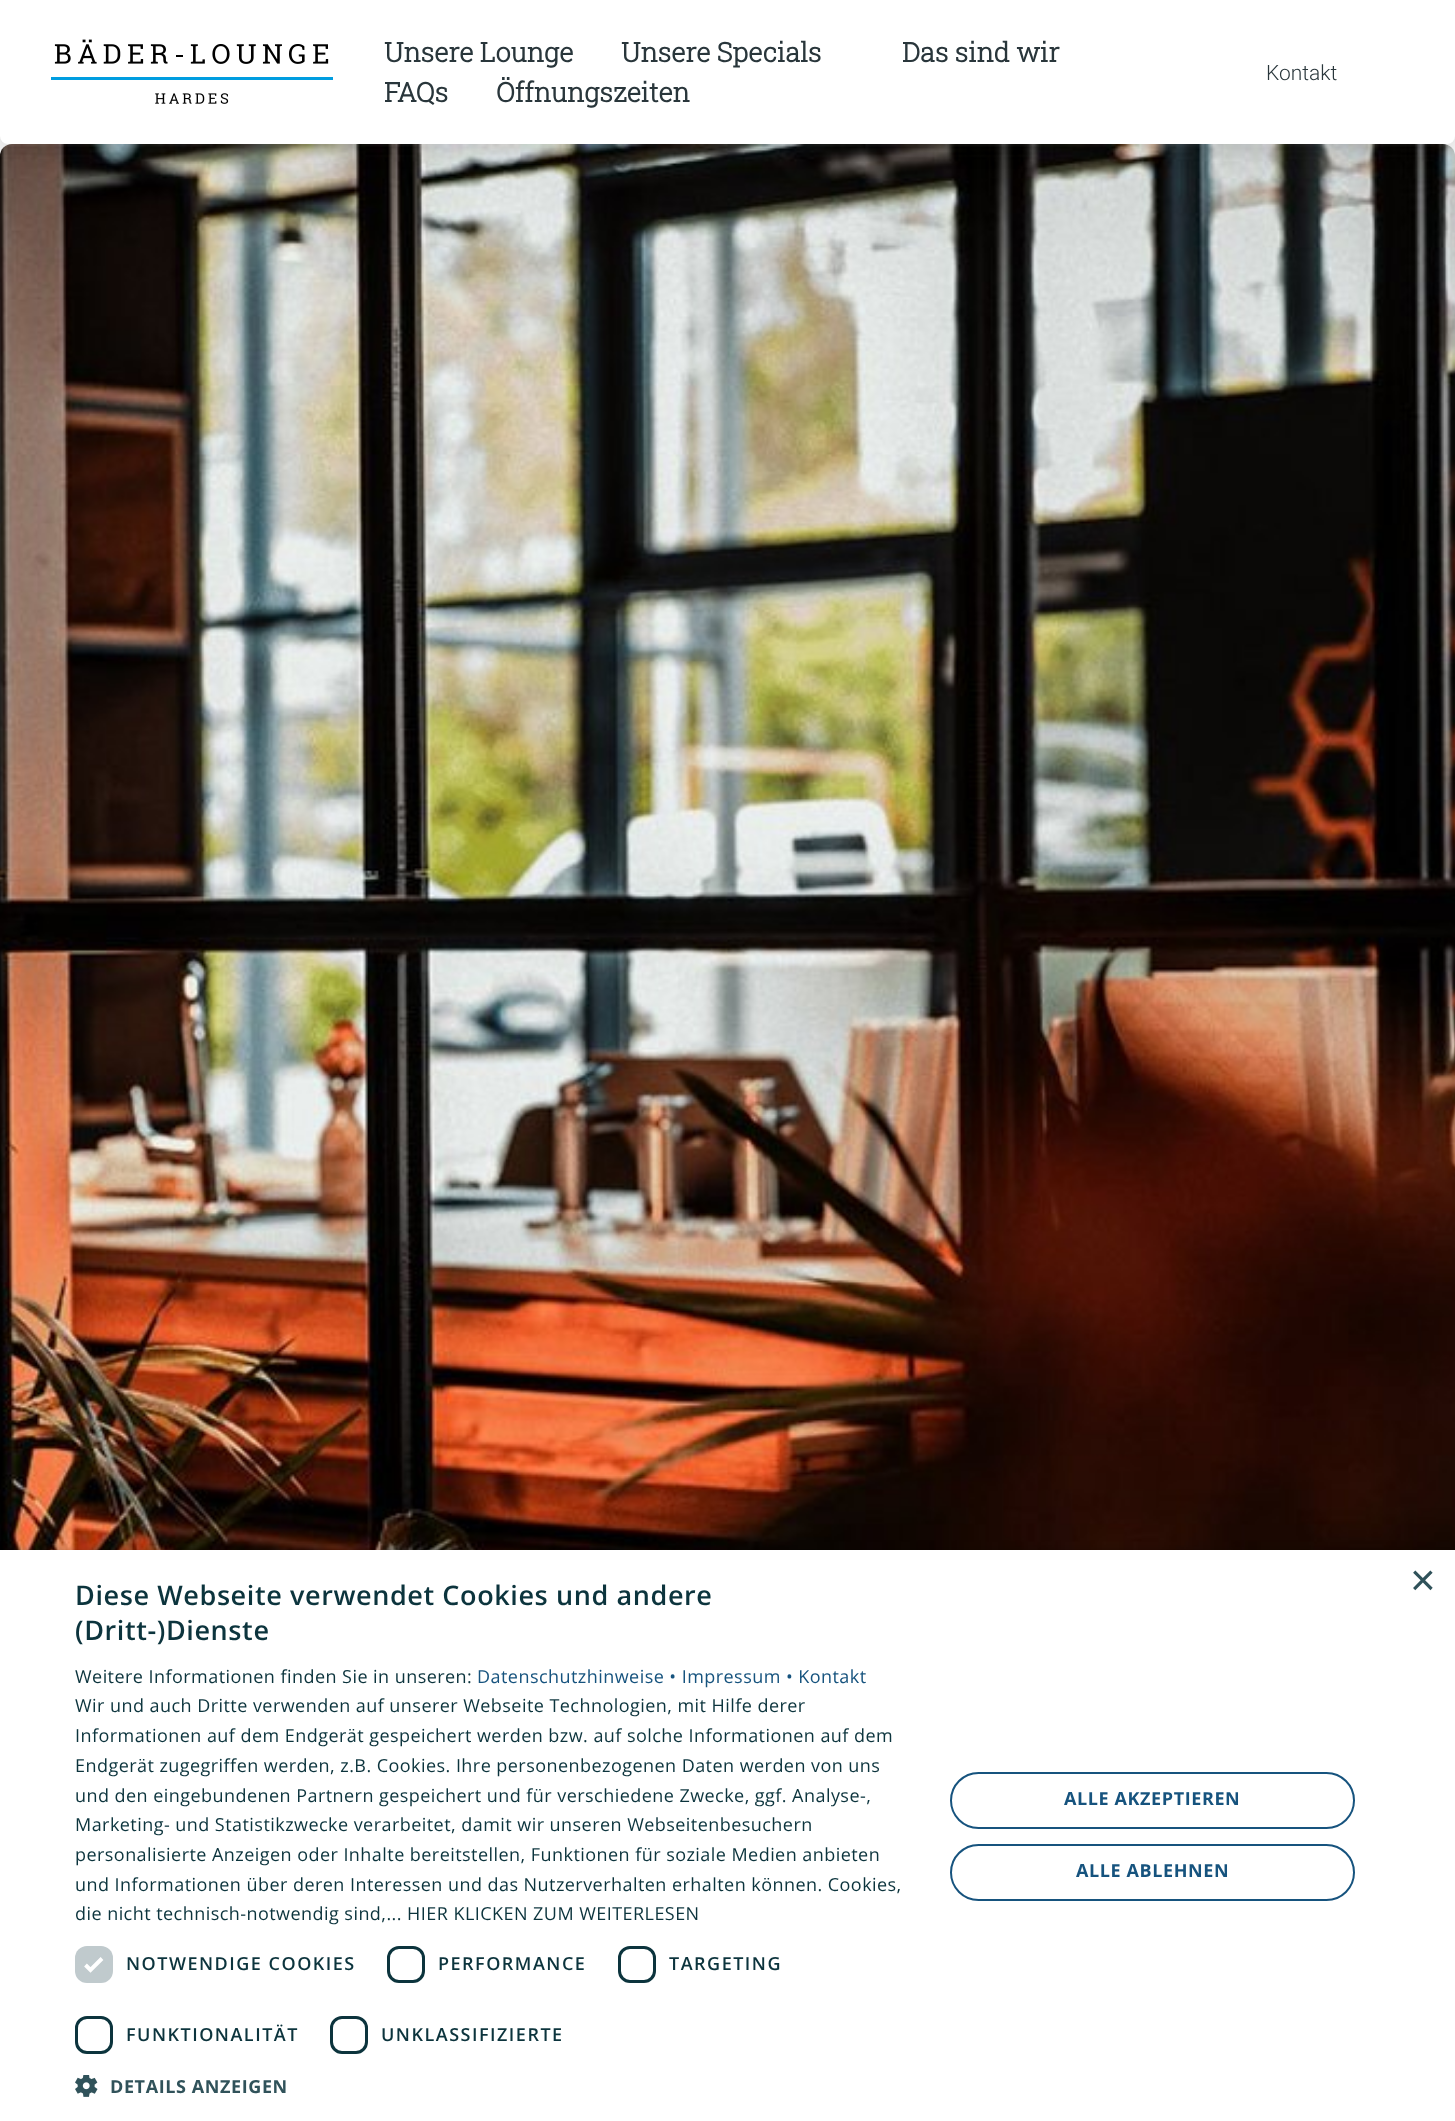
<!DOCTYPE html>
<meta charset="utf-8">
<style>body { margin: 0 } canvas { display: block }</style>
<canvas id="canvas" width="1455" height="2121"></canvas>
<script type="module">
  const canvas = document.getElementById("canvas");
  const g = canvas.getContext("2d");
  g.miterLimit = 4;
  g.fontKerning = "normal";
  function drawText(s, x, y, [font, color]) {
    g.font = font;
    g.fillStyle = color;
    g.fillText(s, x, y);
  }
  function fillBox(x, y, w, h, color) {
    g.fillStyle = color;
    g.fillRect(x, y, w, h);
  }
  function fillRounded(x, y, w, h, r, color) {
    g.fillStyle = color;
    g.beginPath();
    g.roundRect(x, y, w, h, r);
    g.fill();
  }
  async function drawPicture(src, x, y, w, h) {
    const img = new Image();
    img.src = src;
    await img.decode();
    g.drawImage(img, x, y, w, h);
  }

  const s1 = ["bold 27px Roboto Slab", "#29363B"];
  const s2 = ["300 21px Roboto", "#29363B"];
  const s3 = ["44px Liberation Sans", "#30525A"];
  const s4 = ["600 27px Open Sans", "#0C343D"];
  const s5 = ["18px Open Sans", "#0C343D"];
  const s6 = ["18px Open Sans", "#16537E"];
  const s7 = ["600 18px Open Sans", "#0C343D"];
  const s8 = ["bold 18px Open Sans", "#30525A"];
  const s9 = ["bold 18px Open Sans", "#16537E"];

  fillBox(0, 0, 1455, 2121, "#F5F5F5");
  await drawPicture("pic2.png", 0, 144, 1455, 1406);
  g.fillStyle = "rgba(0, 0, 0, 0.16)";
  g.filter = "blur(12px)";
  g.beginPath();
  g.roundRect(0, 0, 1455, 144, 8);
  g.fill();
  g.filter = "none";
  g.fillStyle = "#FFFFFF";
  g.beginPath();
  g.roundRect(0, 0, 1455, 144, [0, 0, 8, 8]);
  g.fill();
  await drawPicture("pic1.png", 51, 39, 282, 65);
  drawText("Unsere Lounge", 384, 62, s1);
  drawText("Unsere Specials", 621, 62, s1);
  drawText("Das sind wir", 902, 62, s1);
  drawText("FAQs", 384, 102, s1);
  drawText("Öffnungszeiten", 496, 102, s1);
  drawText("Kontakt", 1266, 80, s2);
  g.fillStyle = "rgba(0, 0, 0, 0.35)";
  g.filter = "blur(6px)";
  g.beginPath();
  g.rect(2, 1553, 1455, 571);
  g.fill();
  g.filter = "none";
  fillBox(0, 1550, 1455, 571, "#FFFFFF");
  drawText("×", 1410, 1595, s3);
  g.letterSpacing = "0.6px";
  drawText("Diese Webseite verwendet Cookies und andere", 75, 1605, s4);
  drawText("(Dritt-)Dienste", 75, 1640, s4);
  g.letterSpacing = "0.45px";
  drawText("Weitere Informationen finden Sie in unseren:", 75, 1683, s5);
  drawText("Datenschutzhinweise • Impressum • Kontakt", 477, 1683, s6);
  drawText("Wir und auch Dritte verwenden auf unserer Webseite Technologien, mit Hilfe derer", 75, 1712, s5);
  drawText("Informationen auf dem Endgerät gespeichert werden bzw. auf solche Informationen auf dem", 75, 1742, s5);
  drawText("Endgerät zugegriffen werden, z.B. Cookies. Ihre personenbezogenen Daten werden von uns", 75, 1772, s5);
  drawText("und den eingebundenen Partnern gespeichert und für verschiedene Zwecke, ggf. Analyse-,", 75, 1802, s5);
  drawText("Marketing- und Statistikzwecke verarbeitet, damit wir unseren Webseitenbesuchern", 75, 1831, s5);
  drawText("personalisierte Anzeigen oder Inhalte bereitstellen, Funktionen für soziale Medien anbieten", 75, 1861, s5);
  drawText("und Informationen über deren Interessen und das Nutzerverhalten erhalten können. Cookies,", 75, 1891, s5);
  drawText("die nicht technisch-notwendig sind,... HIER KLICKEN ZUM WEITERLESEN", 75, 1920, s5);
  fillRounded(75, 1946, 38, 37, 12, "#C0CACD");
  g.beginPath();
  g.moveTo(85.5, 1965);
  g.lineTo(90.5, 1970);
  g.lineTo(102, 1958.5);
  g.strokeStyle = "#FFFFFF";
  g.lineWidth = 3.9;
  g.stroke();
  g.letterSpacing = "1.5px";
  drawText("NOTWENDIGE COOKIES", 126, 1970, s7);
  g.beginPath();
  g.roundRect(388.5, 1947.5, 35, 34, 10.5);
  g.strokeStyle = "#0C343D";
  g.lineWidth = 3;
  g.stroke();
  drawText("PERFORMANCE", 438, 1970, s7);
  g.beginPath();
  g.roundRect(619.5, 1947.5, 35, 34, 10.5);
  g.stroke();
  drawText("TARGETING", 669, 1970, s7);
  g.beginPath();
  g.roundRect(76.5, 2017.5, 35, 35, 10.5);
  g.stroke();
  drawText("FUNKTIONALITÄT", 126, 2041, s7);
  g.beginPath();
  g.roundRect(331.5, 2017.5, 35, 35, 10.5);
  g.stroke();
  drawText("UNKLASSIFIZIERTE", 381, 2041, s7);
  await drawPicture("pic3.png", 75, 2075, 23, 22);
  g.letterSpacing = "0.6px";
  drawText("DETAILS ANZEIGEN", 110, 2093, s8);
  g.beginPath();
  g.roundRect(951, 1773, 403, 55, 27.5);
  g.strokeStyle = "#16537E";
  g.lineWidth = 2;
  g.stroke();
  drawText("ALLE AKZEPTIEREN", 1064, 1805, s9);
  g.beginPath();
  g.roundRect(951, 1845, 403, 55, 27.5);
  g.stroke();
  drawText("ALLE ABLEHNEN", 1076, 1877, s9);
</script>
